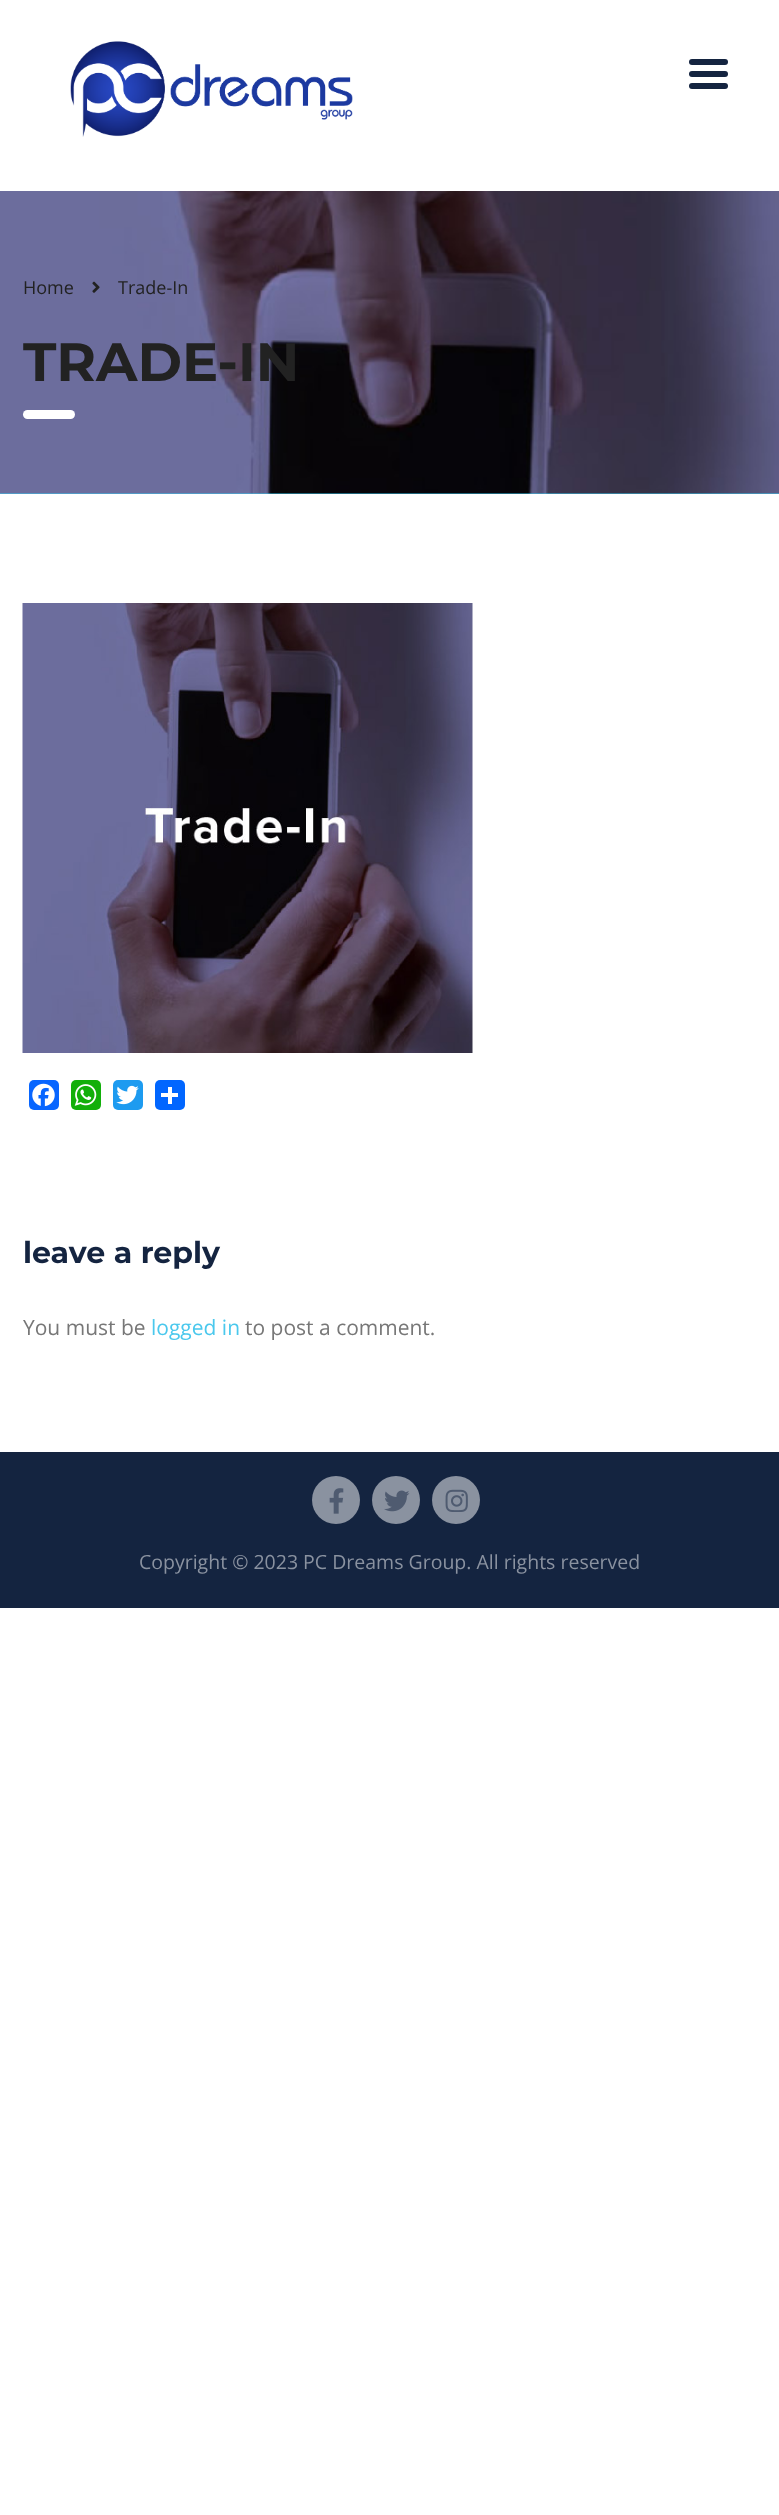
<!DOCTYPE html>
<meta charset="utf-8">
<style>body { margin: 0 } canvas { display: block }</style>
<canvas id="canvas" width="779" height="2515"></canvas>
<script type="module">
  const canvas = document.getElementById("canvas");
  const g = canvas.getContext("2d");
  g.miterLimit = 4;
  g.fontKerning = "normal";
  function drawText(s, x, y, [font, color]) {
    g.font = font;
    g.fillStyle = color;
    g.fillText(s, x, y);
  }
  function fillBox(x, y, w, h, color) {
    g.fillStyle = color;
    g.fillRect(x, y, w, h);
  }
  function fillRounded(x, y, w, h, r, color) {
    g.fillStyle = color;
    g.beginPath();
    g.roundRect(x, y, w, h, r);
    g.fill();
  }
  async function drawPicture(src, x, y, w, h) {
    const img = new Image();
    img.src = src;
    await img.decode();
    g.drawImage(img, x, y, w, h);
  }

  const s1 = ["18px Open Sans", "#222222"];
  const s2 = ["bold 54px Montserrat", "#222222"];
  const s3 = ["bold 30px Montserrat", "#142440"];
  const s4 = ["21px Open Sans", "#777777"];
  const s5 = ["21px Open Sans", "#4AC8ED"];
  const s6 = ["19.5px Open Sans", "#8A92A0"];

  fillBox(0, 0, 779, 2515, "#FFFFFF");
  await drawPicture("pic1.png", 70, 41, 283, 96);
  fillRounded(689, 71, 39, 6, 3, "#142440");
  fillRounded(689, 59, 39, 6, 3, "#142440");
  fillRounded(689, 83, 39, 6, 3, "#142440");
  fillBox(0, 493, 779, 1, "#3AC8ED");
  await drawPicture("pic2.png", 0, 191, 779, 303);
  drawText("Home", 23, 294, s1);
  await drawPicture("pic3.png", 92, 281, 8, 12);
  drawText("Trade-In", 118, 294, s1);
  drawText("TRADE-IN", 23, 381, s2);
  fillRounded(23, 410, 52, 9, 4.5, "#FFFFFF");
  await drawPicture("pic4.png", 22, 603, 451, 450);
  fillRounded(29, 1080, 30, 30, 5, "#0866FF");
  await drawPicture("pic5.png", 32, 1083, 23, 24);
  fillRounded(71, 1080, 30, 30, 5, "#12AF0A");
  await drawPicture("pic6.png", 74, 1084, 23, 22);
  fillRounded(113, 1080, 30, 30, 5, "#1D9BF0");
  await drawPicture("pic7.png", 116, 1085, 23, 20);
  fillRounded(155, 1080, 30, 30, 5, "#0166FF");
  fillBox(168, 1087, 4, 17, "#FFFFFF");
  fillBox(161, 1093, 17, 4, "#FFFFFF");
  drawText("leave a reply", 23, 1263, s3);
  drawText("You must be", 23, 1335, s4);
  drawText("logged in", 151, 1335, s5);
  drawText("to post a comment.", 245, 1335, s4);
  fillBox(0, 1452, 779, 156, "#142440");
  g.fillStyle = "#8A92A0";
  g.beginPath();
  g.arc(336, 1500, 24, 0, Math.PI * 2);
  g.fill();
  await drawPicture("pic8.png", 329, 1488, 15, 26);
  g.beginPath();
  g.arc(396, 1500, 24, 0, Math.PI * 2);
  g.fill();
  await drawPicture("pic9.png", 384, 1490, 26, 22);
  g.beginPath();
  g.arc(456, 1500, 24, 0, Math.PI * 2);
  g.fill();
  await drawPicture("pic10.png", 445, 1489, 23, 23);
  drawText("Copyright © 2023 PC Dreams Group. All rights reserved", 139, 1569, s6);
</script>
